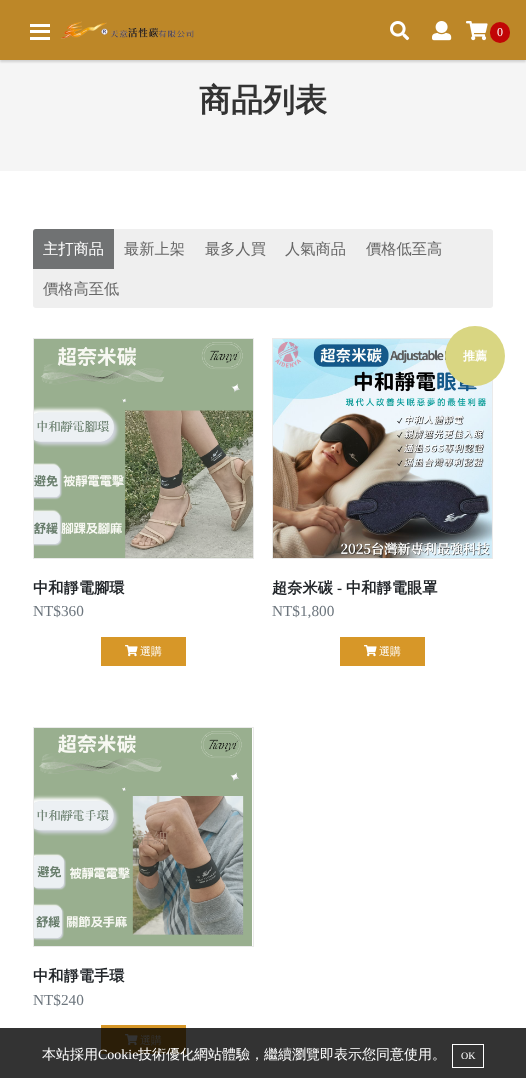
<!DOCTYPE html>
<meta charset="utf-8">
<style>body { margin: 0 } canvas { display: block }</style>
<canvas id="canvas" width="526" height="1078"></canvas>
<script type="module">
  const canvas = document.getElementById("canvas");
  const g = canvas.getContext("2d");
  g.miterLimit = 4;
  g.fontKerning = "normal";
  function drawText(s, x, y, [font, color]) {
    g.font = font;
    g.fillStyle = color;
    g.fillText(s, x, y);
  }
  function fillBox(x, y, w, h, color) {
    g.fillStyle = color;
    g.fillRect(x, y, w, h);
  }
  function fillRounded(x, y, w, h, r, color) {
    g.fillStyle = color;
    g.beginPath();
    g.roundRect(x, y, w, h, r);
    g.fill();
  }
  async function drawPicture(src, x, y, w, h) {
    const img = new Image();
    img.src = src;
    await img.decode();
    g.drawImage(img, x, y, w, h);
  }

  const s1 = ["12px Liberation Serif", "#FFFFFF"];
  const s2 = ["bold 32px WenQuanYi Zen Hei", "#333333"];
  const s3 = ["500 15.25px WenQuanYi Zen Hei", "#FFFFFF"];
  const s4 = ["500 15.25px WenQuanYi Zen Hei", "#666666"];
  const s5 = ["bold 15.25px WenQuanYi Zen Hei", "#212529"];
  const s6 = ["15.25px Liberation Serif", "#6C757D"];
  const s7 = ["500 11px WenQuanYi Zen Hei", "#FFFFFF"];
  const s8 = ["bold 12px WenQuanYi Zen Hei", "#FFFFFF"];
  const s9 = ["bold 15.25px Liberation Serif", "#212529"];
  const s10 = ["500 15.25px WenQuanYi Zen Hei", "#A28775"];
  const s11 = ["500 11px WenQuanYi Zen Hei", "#333333"];
  const s12 = ["500 14px WenQuanYi Zen Hei", "#FFFFFF"];
  const s13 = ["14px Liberation Serif", "#FFFFFF"];
  const s14 = ["10px Liberation Serif", "#FFFFFF"];

  fillBox(0, 0, 526, 1078, "#FFFFFF");
  fillBox(0, 60, 526, 111, "#F5F5F5");
  g.fillStyle = "rgba(0, 0, 0, 0.15)";
  g.filter = "blur(1px)";
  g.beginPath();
  g.rect(0, 2, 526, 60);
  g.fill();
  g.filter = "none";
  fillBox(0, 0, 526, 60, "#BD8728");
  fillBox(30, 24, 20, 3, "#FFFFFF");
  fillBox(30, 37, 20, 3, "#FFFFFF");
  fillBox(30, 30, 20, 3, "#FFFFFF");
  await drawPicture("pic1.png", 60, 21, 134, 18);
  await drawPicture("pic2.png", 390, 21, 20, 20);
  await drawPicture("pic3.png", 432, 21, 20, 20);
  await drawPicture("pic4.png", 466, 21, 22, 20);
  fillRounded(490, 22, 20, 21, 10, "#C10606");
  drawText("0", 497, 36, s1);
  fillBox(0, 1028, 526, 50, "#333333");
  drawText("商品列表", 199, 111, s2);
  fillRounded(33, 229, 460, 79, 3, "#EFEFEF");
  g.fillStyle = "#707273";
  g.beginPath();
  g.roundRect(33, 229, 81, 40, [3, 0, 0, 0]);
  g.fill();
  drawText("主打商品", 43, 254, s3);
  drawText("最新上架", 124, 254, s4);
  drawText("最多人買", 205, 254, s4);
  drawText("人氣商品", 285, 254, s4);
  drawText("價格低至高", 366, 254, s4);
  drawText("價格高至低", 43, 294, s4);
  g.strokeStyle = "#EAEAEA";
  g.strokeRect(33.5, 338.5, 220, 220);
  await drawPicture("pic5.png", 34, 339, 219, 219);
  drawText("中和靜電腳環", 33, 593, s5);
  drawText("NT$360", 33, 616, s6);
  fillBox(101, 637, 85, 29, "#D79728");
  await drawPicture("pic6.png", 125, 645, 13, 12);
  drawText("選購", 140, 655, s7);
  g.strokeRect(272.5, 338.5, 220, 220);
  await drawPicture("pic7.png", 273, 339, 219, 219);
  g.fillStyle = "#D9D682";
  g.beginPath();
  g.arc(475, 356, 30, 0, Math.PI * 2);
  g.fill();
  drawText("推薦", 463, 360, s8);
  drawText("超奈米碳", 272, 593, s5);
  drawText("-", 337, 593, s9);
  drawText("中和靜電眼罩", 346, 593, s5);
  drawText("NT$1,800", 272, 616, s6);
  fillBox(340, 637, 85, 29, "#D79728");
  await drawPicture("pic6.png", 364, 645, 13, 12);
  drawText("選購", 379, 655, s7);
  g.strokeRect(33.5, 727.5, 220, 219);
  await drawPicture("pic8.png", 34, 728, 218, 218);
  drawText("詳細", 138, 843, s10);
  drawText("中和靜電手環", 33, 981, s5);
  drawText("NT$240", 33, 1005, s6);
  fillBox(101, 1025, 85, 3, "#D79728");
  fillBox(101, 1028, 85, 26, "#2B1E08");
  await drawPicture("pic9.png", 125, 1034, 13, 12);
  drawText("選購", 140, 1044, s11);
  drawText("本站採用", 42, 1059, s12);
  drawText("Cookie", 98, 1059, s13);
  drawText("技術優化網站體驗，繼續瀏覽即表示您同意使用。", 138, 1059, s12);
  g.strokeStyle = "#FFFFFF";
  g.strokeRect(452.5, 1044.5, 31, 23);
  drawText("OK", 461, 1059, s14);
</script>
